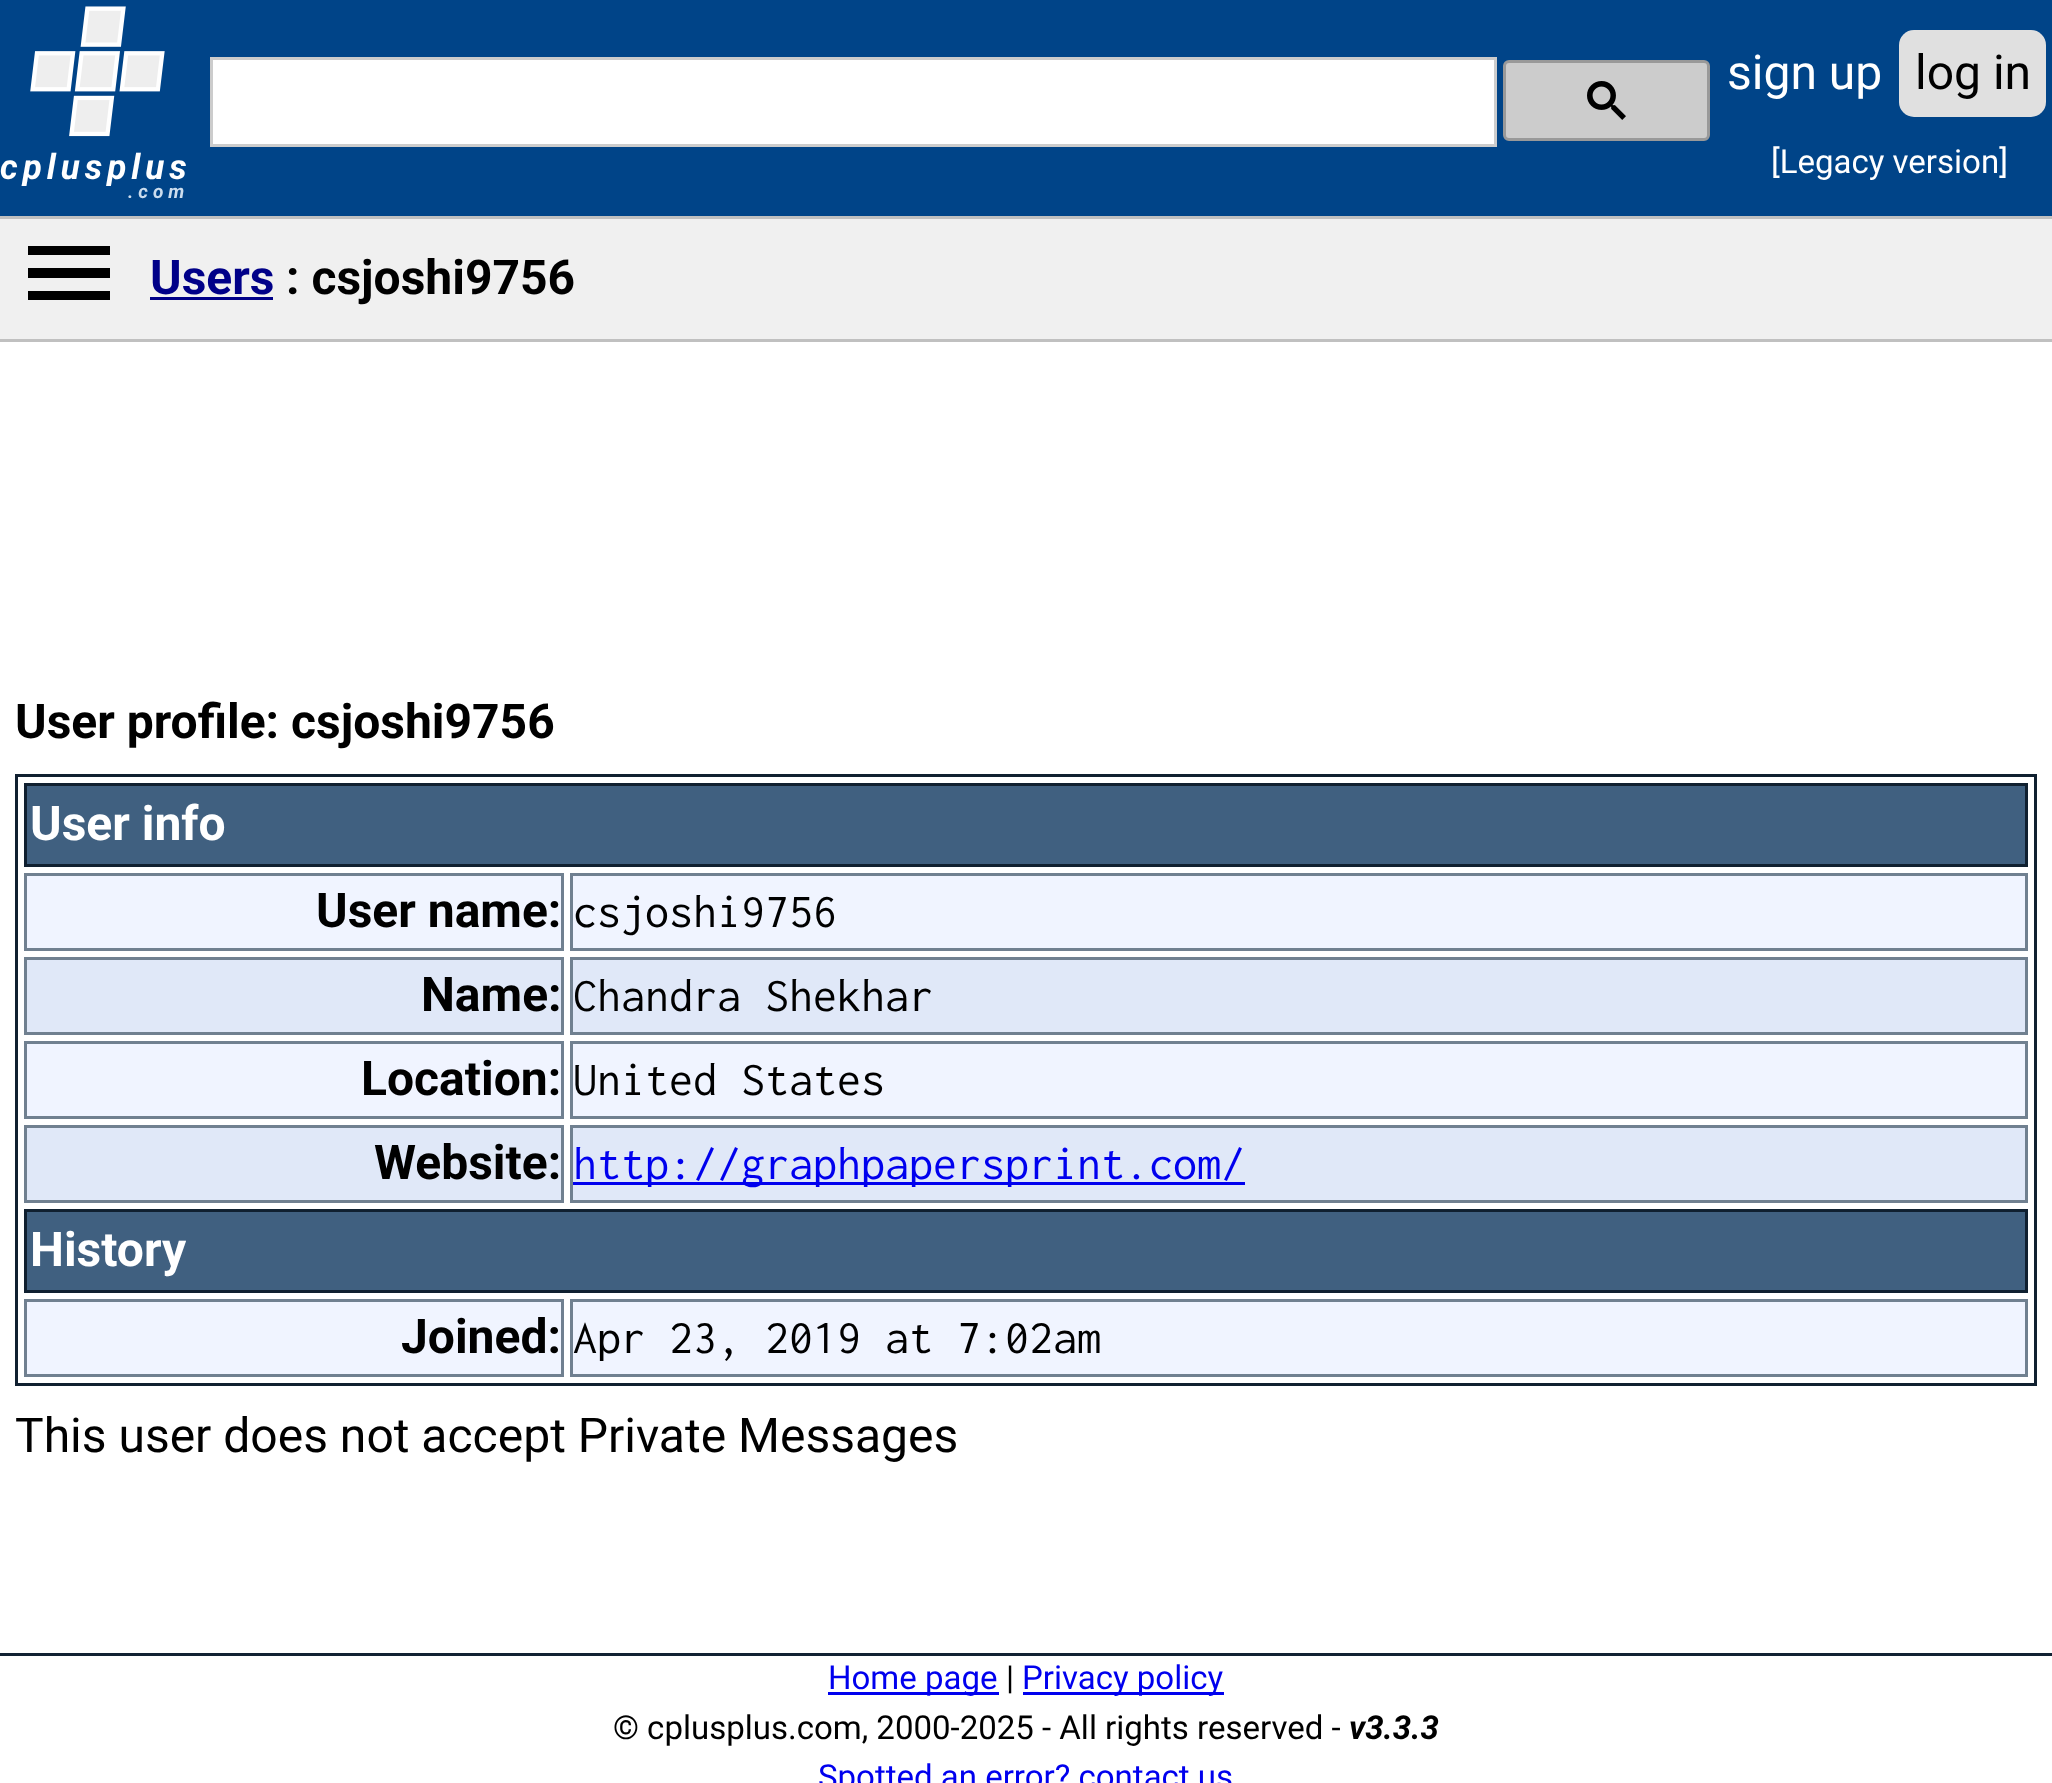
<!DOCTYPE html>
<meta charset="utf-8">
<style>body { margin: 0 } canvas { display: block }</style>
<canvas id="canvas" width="2052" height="1783"></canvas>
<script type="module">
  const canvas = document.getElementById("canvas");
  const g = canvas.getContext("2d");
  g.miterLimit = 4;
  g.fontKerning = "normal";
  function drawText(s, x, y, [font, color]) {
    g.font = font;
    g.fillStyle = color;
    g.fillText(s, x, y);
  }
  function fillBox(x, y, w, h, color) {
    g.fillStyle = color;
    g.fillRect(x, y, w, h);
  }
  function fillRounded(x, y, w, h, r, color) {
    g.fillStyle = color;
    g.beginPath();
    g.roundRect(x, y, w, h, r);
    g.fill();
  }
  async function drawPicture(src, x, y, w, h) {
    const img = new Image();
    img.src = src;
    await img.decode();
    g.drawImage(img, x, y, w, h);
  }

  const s1 = ["48px Roboto", "#FFFFFF"];
  const s2 = ["48px Roboto", "#000000"];
  const s3 = ["33px Roboto", "#FFFFFF"];
  const s4 = ["italic bold 35px Roboto", "#FFFFFF"];
  const s5 = ["italic bold 19px Roboto", "#CCDDEE"];
  const s6 = ["bold 48px Roboto", "#000088"];
  const s7 = ["bold 48px Roboto", "#000000"];
  const s8 = ["bold 48px Roboto", "#FFFFFF"];
  const s9 = ["48px Inconsolata", "#000000"];
  const s10 = ["48px Inconsolata", "#0000EE"];
  const s11 = ["33px Roboto", "#0000EE"];
  const s12 = ["33px Roboto", "#000000"];
  const s13 = ["italic bold 33px Roboto", "#000000"];

  fillBox(0, 0, 2052, 1783, "#FFFFFF");
  fillBox(0, 0, 2052, 216, "#004488");
  g.fillStyle = "#FFFFFF";
  g.beginPath();
  g.rect(211.5, 58.5, 1284, 87);
  g.fill();
  g.strokeStyle = "#CCCCCC";
  g.lineWidth = 3;
  g.stroke();
  g.fillStyle = "#CCCCCC";
  g.beginPath();
  g.roundRect(1504.5, 61.5, 204, 78, 4.5);
  g.fill();
  g.strokeStyle = "#999999";
  g.stroke();
  await drawPicture("pic1.png", 1587, 81, 39, 39);
  drawText("sign up", 1727, 89, s1);
  fillRounded(1899, 30, 147, 87, 15, "#E0E0E0");
  drawText("log in", 1915, 89, s2);
  drawText("[Legacy version]", 1771, 173, s3);
  await drawPicture("pic2.png", 30, 6, 135, 131);
  g.letterSpacing = "5px";
  drawText("cplusplus", 0, 179, s4);
  drawText(".com", 128, 198, s5);
  fillBox(0, 219, 2052, 120, "#F0F0F0");
  fillBox(0, 216, 2052, 3, "#C0C0C0");
  fillBox(0, 339, 2052, 3, "#C0C0C0");
  g.fillStyle = "#000000";
  g.beginPath();
  g.moveTo(28, 300);
  g.lineTo(110, 300);
  g.lineTo(110, 291);
  g.lineTo(28, 291);
  g.closePath();
  g.moveTo(28, 278);
  g.lineTo(110, 278);
  g.lineTo(110, 268);
  g.lineTo(28, 268);
  g.closePath();
  g.moveTo(28, 246);
  g.lineTo(28, 255);
  g.lineTo(110, 255);
  g.lineTo(110, 246);
  g.closePath();
  g.fill();
  g.letterSpacing = "0px";
  drawText("Users", 150, 294, s6);
  fillBox(150, 297, 123, 3, "#000088");
  drawText(": csjoshi9756", 286, 294, s7);
  drawText("User profile: csjoshi9756", 15, 738, s7);
  g.strokeStyle = "#102030";
  g.strokeRect(16.5, 775.5, 2019, 609);
  g.fillStyle = "#406080";
  g.beginPath();
  g.rect(25.5, 784.5, 2001, 81);
  g.fill();
  g.stroke();
  drawText("User info", 30, 840, s8);
  g.fillStyle = "#F0F4FF";
  g.beginPath();
  g.rect(25.5, 874.5, 537, 75);
  g.fill();
  g.strokeStyle = "#708090";
  g.stroke();
  drawText("User name:", 316, 927, s7);
  g.fillStyle = "#F0F4FF";
  g.beginPath();
  g.rect(571.5, 874.5, 1455, 75);
  g.fill();
  g.stroke();
  drawText("csjoshi9756", 573, 927, s9);
  g.fillStyle = "#E0E8F8";
  g.beginPath();
  g.rect(25.5, 958.5, 537, 75);
  g.fill();
  g.stroke();
  drawText("Name:", 421, 1011, s7);
  g.fillStyle = "#E0E8F8";
  g.beginPath();
  g.rect(571.5, 958.5, 1455, 75);
  g.fill();
  g.stroke();
  drawText("Chandra Shekhar", 573, 1011, s9);
  g.fillStyle = "#F0F4FF";
  g.beginPath();
  g.rect(25.5, 1042.5, 537, 75);
  g.fill();
  g.stroke();
  drawText("Location:", 361, 1095, s7);
  g.fillStyle = "#F0F4FF";
  g.beginPath();
  g.rect(571.5, 1042.5, 1455, 75);
  g.fill();
  g.stroke();
  drawText("United States", 573, 1095, s9);
  g.fillStyle = "#E0E8F8";
  g.beginPath();
  g.rect(25.5, 1126.5, 537, 75);
  g.fill();
  g.stroke();
  drawText("Website:", 374, 1179, s7);
  g.fillStyle = "#E0E8F8";
  g.beginPath();
  g.rect(571.5, 1126.5, 1455, 75);
  g.fill();
  g.stroke();
  fillBox(573, 1182, 672, 3, "#0000EE");
  drawText("http://graphpapersprint.com/", 573, 1179, s10);
  g.fillStyle = "#406080";
  g.beginPath();
  g.rect(25.5, 1210.5, 2001, 81);
  g.fill();
  g.strokeStyle = "#102030";
  g.stroke();
  drawText("History", 30, 1266, s8);
  g.fillStyle = "#F0F4FF";
  g.beginPath();
  g.rect(25.5, 1300.5, 537, 75);
  g.fill();
  g.strokeStyle = "#708090";
  g.stroke();
  drawText("Joined:", 401, 1353, s7);
  g.fillStyle = "#F0F4FF";
  g.beginPath();
  g.rect(571.5, 1300.5, 1455, 75);
  g.fill();
  g.stroke();
  drawText("Apr 23, 2019 at 7:02am", 573, 1353, s9);
  drawText("This user does not accept Private Messages", 15, 1452, s2);
  fillBox(0, 1653, 2052, 3, "#112233");
  fillBox(828, 1692, 171, 3, "#0000EE");
  drawText("Home page", 828, 1689, s11);
  drawText("|", 1006, 1689, s12);
  fillBox(1023, 1692, 201, 3, "#0000EE");
  drawText("Privacy policy", 1022, 1689, s11);
  drawText("© cplusplus.com, 2000-2025 - All rights reserved -", 613, 1739, s12);
  drawText("v3.3.3", 1349, 1739, s13);
  drawText("Spotted an error? contact us", 818, 1788, s11);
</script>
